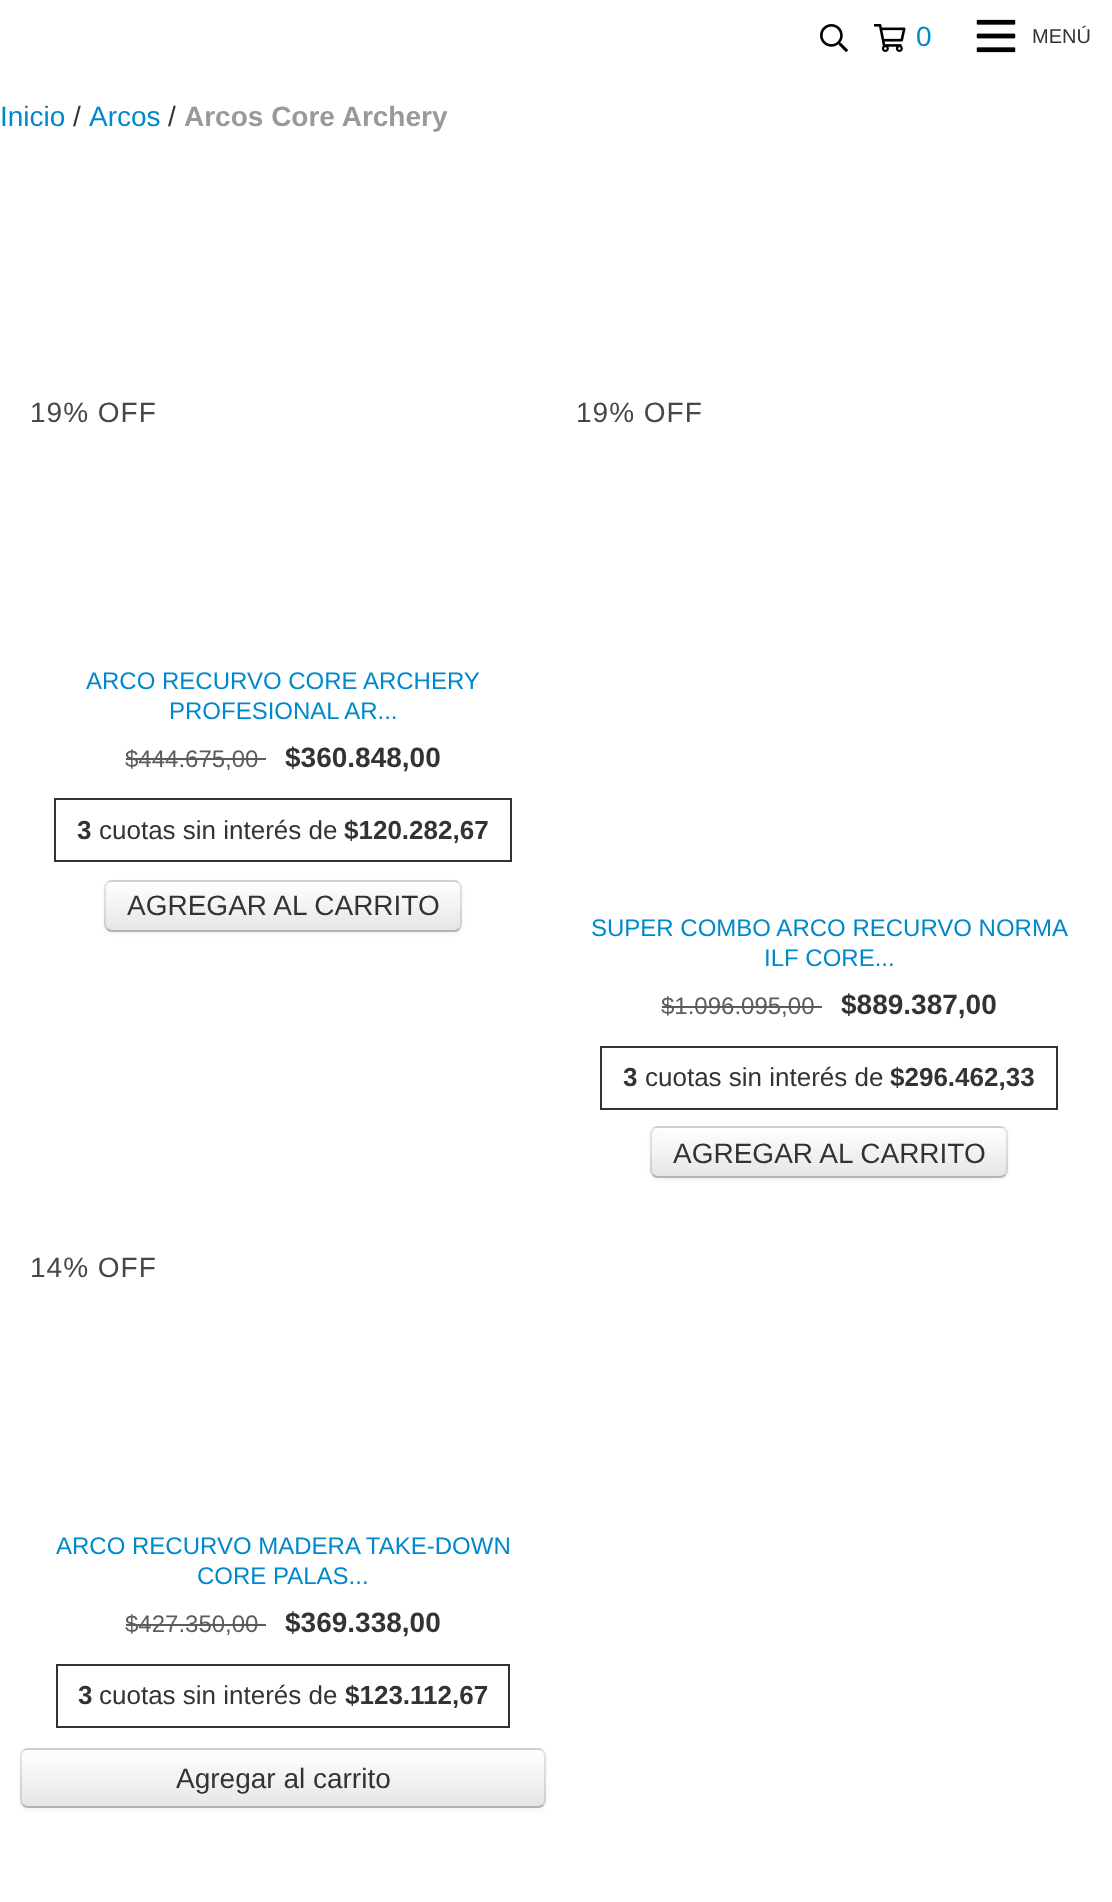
<!DOCTYPE html>
<meta charset="utf-8">
<style>body { margin: 0 } canvas { display: block }</style>
<canvas id="canvas" width="1112" height="1902"></canvas>
<script type="module">
  const canvas = document.getElementById("canvas");
  const g = canvas.getContext("2d");
  g.miterLimit = 4;
  g.fontKerning = "normal";
  function drawText(s, x, y, [font, color]) {
    g.font = font;
    g.fillStyle = color;
    g.fillText(s, x, y);
  }
  function fillBox(x, y, w, h, color) {
    g.fillStyle = color;
    g.fillRect(x, y, w, h);
  }
  async function drawPicture(src, x, y, w, h) {
    const img = new Image();
    img.src = src;
    await img.decode();
    g.drawImage(img, x, y, w, h);
  }
  let gradient;

  const s1 = ["28px Liberation Sans", "#0088CC"];
  const s2 = ["20px Liberation Sans", "#333333"];
  const s3 = ["28px Liberation Sans", "#333333"];
  const s4 = ["bold 28px Liberation Sans", "#999999"];
  const s5 = ["28px Liberation Sans", "#474747"];
  const s6 = ["24px Liberation Sans", "#0088CC"];
  const s7 = ["24px Liberation Sans", "#5C5C5C"];
  const s8 = ["bold 28px Liberation Sans", "#333333"];
  const s9 = ["bold 26px Liberation Sans", "#333333"];
  const s10 = ["26px Liberation Sans", "#333333"];

  fillBox(0, 0, 1112, 1902, "#FFFFFF");
  await drawPicture("pic1.png", 820, 24, 28, 28);
  await drawPicture("pic2.png", 874, 24, 32, 28);
  g.letterSpacing = "2px";
  drawText("0", 916, 46, s1);
  await drawPicture("pic3.png", 976, 19, 40, 34);
  g.letterSpacing = "0px";
  drawText("MENÚ", 1032, 43, s2);
  drawText("Inicio", 0, 126, s1);
  drawText("/", 73, 126, s3);
  drawText("Arcos", 89, 126, s1);
  drawText("/", 168, 126, s3);
  drawText("Arcos Core Archery", 184, 126, s4);
  g.letterSpacing = "1px";
  drawText("19% OFF", 30, 422, s5);
  g.letterSpacing = "0px";
  drawText("ARCO RECURVO CORE ARCHERY", 86, 689, s6);
  drawText("PROFESIONAL AR...", 169, 719, s6);
  drawText("$444.675,00", 125, 767, s7);
  fillBox(126, 758, 140, 2, "#5C5C5C");
  drawText("$360.848,00", 285, 767, s8);
  g.strokeStyle = "#333333";
  g.lineWidth = 2;
  g.strokeRect(55, 799, 456, 62);
  drawText("3", 77, 839, s9);
  drawText("cuotas sin interés de", 99, 839, s10);
  drawText("$120.282,67", 344, 839, s9);
  g.fillStyle = "rgba(0, 0, 0, 0.05)";
  g.filter = "blur(2px)";
  g.beginPath();
  g.roundRect(104, 882, 358, 52, 8);
  g.fill();
  g.filter = "none";
  g.save();
  g.beginPath();
  g.roundRect(104, 880, 358, 52, 8);
  g.clip();
  gradient = g.createLinearGradient(283, 882, 283, 930);
  gradient.addColorStop(0, "#FFFFFF");
  gradient.addColorStop(1, "#E6E6E6");
  g.fillStyle = gradient;
  g.fillRect(104, 882, 358, 48);
  gradient = g.createLinearGradient(283, 834, 283, 882);
  gradient.addColorStop(0, "#FFFFFF");
  gradient.addColorStop(1, "#E6E6E6");
  g.fillStyle = gradient;
  g.fillRect(104, 880, 358, 2);
  g.restore();
  g.beginPath();
  g.moveTo(459, 929);
  g.bezierCurveTo(457.5, 930.5, 456, 931, 454, 931);
  g.lineTo(112, 931);
  g.bezierCurveTo(110, 931, 108.5, 930.5, 107, 929);
  g.strokeStyle = "#B3B3B3";
  g.stroke();
  g.beginPath();
  g.moveTo(107, 929);
  g.bezierCurveTo(105.5, 927.5, 105, 926, 105, 924);
  g.lineTo(105, 888);
  g.bezierCurveTo(105, 886, 105.5, 884.5, 107, 883);
  g.bezierCurveTo(108.5, 881.5, 110, 881, 112, 881);
  g.lineTo(454, 881);
  g.bezierCurveTo(456, 881, 457.5, 881.5, 459, 883);
  g.bezierCurveTo(460.5, 884.5, 461, 886, 461, 888);
  g.lineTo(461, 924);
  g.bezierCurveTo(461, 926, 460.5, 927.5, 459, 929);
  g.strokeStyle = "rgba(0, 0, 0, 0.1)";
  g.stroke();
  drawText("AGREGAR AL CARRITO", 127, 915, s3);
  g.letterSpacing = "1px";
  drawText("19% OFF", 576, 422, s5);
  g.letterSpacing = "0px";
  drawText("SUPER COMBO ARCO RECURVO NORMA", 591, 936, s6);
  drawText("ILF CORE...", 764, 966, s6);
  drawText("$1.096.095,00", 661, 1014, s7);
  fillBox(662, 1006, 160, 2, "#5C5C5C");
  drawText("$889.387,00", 841, 1014, s8);
  g.strokeStyle = "#333333";
  g.strokeRect(601, 1047, 456, 62);
  drawText("3", 623, 1086, s9);
  drawText("cuotas sin interés de", 645, 1086, s10);
  drawText("$296.462,33", 890, 1086, s9);
  g.fillStyle = "rgba(0, 0, 0, 0.05)";
  g.filter = "blur(2px)";
  g.beginPath();
  g.roundRect(650, 1128, 358, 52, 8);
  g.fill();
  g.filter = "none";
  g.save();
  g.beginPath();
  g.roundRect(650, 1126, 358, 52, 8);
  g.clip();
  gradient = g.createLinearGradient(829, 1128, 829, 1176);
  gradient.addColorStop(0, "#FFFFFF");
  gradient.addColorStop(1, "#E6E6E6");
  g.fillStyle = gradient;
  g.fillRect(650, 1128, 358, 48);
  gradient = g.createLinearGradient(829, 1080, 829, 1128);
  gradient.addColorStop(0, "#FFFFFF");
  gradient.addColorStop(1, "#E6E6E6");
  g.fillStyle = gradient;
  g.fillRect(650, 1126, 358, 2);
  g.restore();
  g.beginPath();
  g.moveTo(1005, 1175);
  g.bezierCurveTo(1003.5, 1176.5, 1002, 1177, 1000, 1177);
  g.lineTo(658, 1177);
  g.bezierCurveTo(656, 1177, 654.5, 1176.5, 653, 1175);
  g.strokeStyle = "#B3B3B3";
  g.stroke();
  g.beginPath();
  g.moveTo(653, 1175);
  g.bezierCurveTo(651.5, 1173.5, 651, 1172, 651, 1170);
  g.lineTo(651, 1134);
  g.bezierCurveTo(651, 1132, 651.5, 1130.5, 653, 1129);
  g.bezierCurveTo(654.5, 1127.5, 656, 1127, 658, 1127);
  g.lineTo(1000, 1127);
  g.bezierCurveTo(1002, 1127, 1003.5, 1127.5, 1005, 1129);
  g.bezierCurveTo(1006.5, 1130.5, 1007, 1132, 1007, 1134);
  g.lineTo(1007, 1170);
  g.bezierCurveTo(1007, 1172, 1006.5, 1173.5, 1005, 1175);
  g.strokeStyle = "rgba(0, 0, 0, 0.1)";
  g.stroke();
  drawText("AGREGAR AL CARRITO", 673, 1163, s3);
  g.letterSpacing = "1px";
  drawText("14% OFF", 30, 1277, s5);
  g.letterSpacing = "0px";
  drawText("ARCO RECURVO MADERA TAKE-DOWN", 56, 1554, s6);
  drawText("CORE PALAS...", 197, 1584, s6);
  drawText("$427.350,00", 125, 1632, s7);
  fillBox(126, 1624, 140, 2, "#5C5C5C");
  drawText("$369.338,00", 285, 1632, s8);
  g.strokeStyle = "#333333";
  g.strokeRect(57, 1665, 452, 62);
  drawText("3", 78, 1704, s9);
  drawText("cuotas sin interés de", 99, 1704, s10);
  drawText("$123.112,67", 345, 1704, s9);
  g.fillStyle = "rgba(0, 0, 0, 0.05)";
  g.filter = "blur(2px)";
  g.beginPath();
  g.roundRect(20, 1750, 526, 60, 8);
  g.fill();
  g.filter = "none";
  g.save();
  g.beginPath();
  g.roundRect(20, 1748, 526, 60, 8);
  g.clip();
  gradient = g.createLinearGradient(283, 1694, 283, 1750);
  gradient.addColorStop(0, "#FFFFFF");
  gradient.addColorStop(1, "#E6E6E6");
  g.fillStyle = gradient;
  g.fillRect(20, 1748, 526, 2);
  gradient = g.createLinearGradient(283, 1750, 283, 1806);
  gradient.addColorStop(0, "#FFFFFF");
  gradient.addColorStop(1, "#E6E6E6");
  g.fillStyle = gradient;
  g.fillRect(20, 1750, 526, 56);
  g.restore();
  g.beginPath();
  g.moveTo(543, 1805);
  g.bezierCurveTo(541.5, 1806.5, 540, 1807, 538, 1807);
  g.lineTo(28, 1807);
  g.bezierCurveTo(26, 1807, 24.5, 1806.5, 23, 1805);
  g.strokeStyle = "#B3B3B3";
  g.stroke();
  g.beginPath();
  g.moveTo(23, 1805);
  g.bezierCurveTo(21.5, 1803.5, 21, 1802, 21, 1800);
  g.lineTo(21, 1756);
  g.bezierCurveTo(21, 1754, 21.5, 1752.5, 23, 1751);
  g.bezierCurveTo(24.5, 1749.5, 26, 1749, 28, 1749);
  g.lineTo(538, 1749);
  g.bezierCurveTo(540, 1749, 541.5, 1749.5, 543, 1751);
  g.bezierCurveTo(544.5, 1752.5, 545, 1754, 545, 1756);
  g.lineTo(545, 1800);
  g.bezierCurveTo(545, 1802, 544.5, 1803.5, 543, 1805);
  g.strokeStyle = "rgba(0, 0, 0, 0.1)";
  g.stroke();
  drawText("Agregar al carrito", 176, 1788, s3);
</script>
